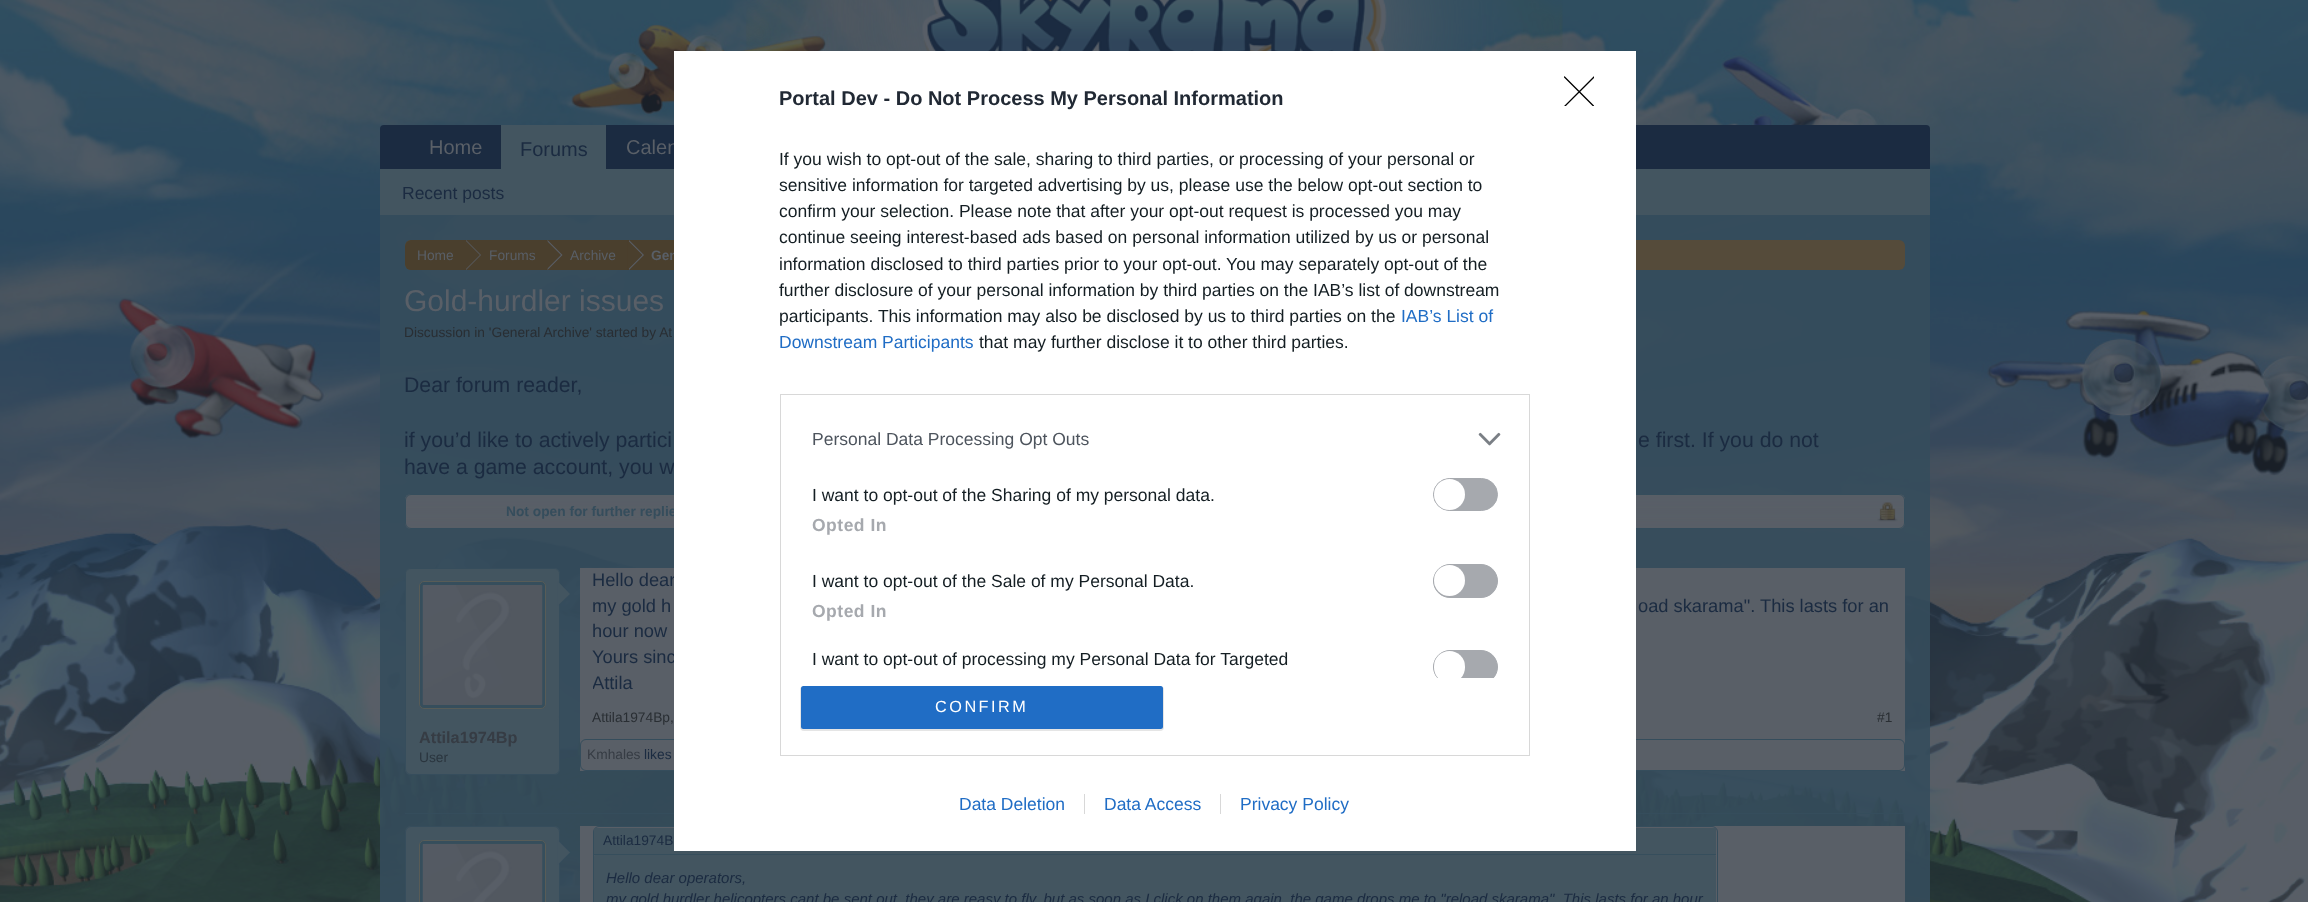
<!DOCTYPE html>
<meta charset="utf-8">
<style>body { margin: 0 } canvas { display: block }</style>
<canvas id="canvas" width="2308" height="902"></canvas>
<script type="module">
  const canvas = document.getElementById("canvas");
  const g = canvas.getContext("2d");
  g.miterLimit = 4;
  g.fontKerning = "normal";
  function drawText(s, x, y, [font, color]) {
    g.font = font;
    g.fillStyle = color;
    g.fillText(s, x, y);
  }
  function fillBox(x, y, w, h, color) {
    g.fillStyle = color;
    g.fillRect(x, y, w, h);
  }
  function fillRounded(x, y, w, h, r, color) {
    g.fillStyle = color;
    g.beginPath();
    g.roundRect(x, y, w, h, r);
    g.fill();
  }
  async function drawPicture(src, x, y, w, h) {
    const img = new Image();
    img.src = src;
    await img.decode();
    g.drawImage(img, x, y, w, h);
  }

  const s1 = ["20px Liberation Sans", "#595F67"];
  const s2 = ["bold 13.75px Liberation Sans", "#595F67"];
  const s3 = ["21.25px Liberation Sans", "#1B2B41"];
  const s4 = ["bold 13.75px Liberation Sans", "#354D5C"];
  const s5 = ["18.3px Liberation Sans", "#1B2B41"];
  const s6 = ["bold 20px Liberation Sans", "#212934"];
  const s7 = ["17.5px Liberation Sans", "#141E23"];
  const s8 = ["17.5px Liberation Sans", "#206DC5"];
  const s9 = ["17.5px Liberation Sans", "#4D545D"];
  const s10 = ["bold 17.5px Liberation Sans", "#A6A9AE"];
  const s11 = ["16.25px Liberation Sans", "#FFFFFF"];
  const s12 = ["20px Liberation Sans", "#1B2B41"];
  const s13 = ["17.5px Liberation Sans", "#1B2B41"];
  const s14 = ["13.75px Liberation Sans", "#595F67"];
  const s15 = ["30px Liberation Sans", "#595F67"];
  const s16 = ["13.75px Liberation Sans", "#292E33"];
  const s17 = ["bold 16.25px Liberation Sans", "#363C44"];
  const s18 = ["13.75px Liberation Sans", "#2A353E"];
  const s19 = ["13.75px Liberation Sans", "#363C44"];
  const s20 = ["13.75px Liberation Sans", "#1B2B41"];
  const s21 = ["italic 15px Liberation Sans", "#1B2B41"];

  fillBox(0, 0, 2308, 902, "#FFFFFF");
  await drawPicture("pic1.png", 0, 0, 2308, 902);
  g.fillStyle = "#1B2B41";
  g.beginPath();
  g.roundRect(380, 125, 1550, 46, [4, 4, 0, 0]);
  g.fill();
  fillBox(380, 169, 1550, 46, "#435560");
  drawText("Calen", 626, 154, s1);
  fillBox(380, 215, 1550, 687, "rgba(53, 77, 92, 0.9)");
  fillRounded(405, 240, 1500, 30, 6, "#554B3A");
  fillBox(466, 240, 208, 30, "#4A3F2D");
  drawText("Gen", 651, 260, s2);
  drawText("have a game account, you w", 404, 474, s3);
  fillRounded(405, 494, 1500, 35, 6, "#595F67");
  await drawPicture("pic4.png", 405, 495, 1500, 34);
  g.beginPath();
  g.roundRect(405.5, 494.5, 1499, 34, 5.5);
  g.strokeStyle = "#354D5C";
  g.stroke();
  drawText("Not open for further replie", 506, 516, s4);
  fillBox(809, 554, 733, 1, "#354D5C");
  fillBox(580, 568, 1325, 203, "#595F67");
  drawText("Hello dear", 592, 586, s5);
  drawText("Yours sinc", 592, 663, s5);
  g.beginPath();
  g.roundRect(580.5, 739.5, 1324, 31, 5.5);
  g.stroke();
  fillBox(405, 813, 1500, 1, "#354D5C");
  fillBox(580, 826, 1325, 76, "#595F67");
  g.beginPath();
  g.roundRect(593.5, 826.5, 1124, 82, 5.5);
  g.stroke();
  g.fillStyle = "#435560";
  g.beginPath();
  g.roundRect(594, 828, 1122, 27, [1, 1, 0, 0]);
  g.fill();
  fillBox(674, 51, 962, 800, "#FFFFFF");
  drawText("Portal Dev - Do Not Process My Personal Information", 779, 105, s6);
  drawText("If you wish to opt-out of the sale, sharing to third parties, or processing of your personal or", 779, 165, s7);
  drawText("sensitive information for targeted advertising by us, please use the below opt-out section to", 779, 191, s7);
  drawText("confirm your selection. Please note that after your opt-out request is processed you may", 779, 217, s7);
  drawText("continue seeing interest-based ads based on personal information utilized by us or personal", 779, 243, s7);
  drawText("information disclosed to third parties prior to your opt-out. You may separately opt-out of the", 779, 270, s7);
  drawText("further disclosure of your personal information by third parties on the IAB’s list of downstream", 779, 296, s7);
  drawText("participants. This information may also be disclosed by us to third parties on the", 779, 322, s7);
  drawText("IAB’s List of", 1401, 322, s8);
  drawText("Downstream Participants", 779, 348, s8);
  drawText("that may further disclose it to other third parties.", 979, 348, s7);
  g.strokeStyle = "#D8D8D8";
  g.strokeRect(780.5, 394.5, 749, 361);
  drawText("Personal Data Processing Opt Outs", 812, 445, s9);
  await drawPicture("pic2.png", 1478, 432, 23, 14);
  drawText("I want to opt-out of the Sharing of my personal data.", 812, 501, s7);
  g.fillStyle = "#A6A9AE";
  g.beginPath();
  g.roundRect(1433.5, 478.5, 64, 32, 16);
  g.fill();
  g.strokeStyle = "#A6A9AE";
  g.stroke();
  g.fillStyle = "#FFFFFF";
  g.beginPath();
  g.arc(1449.5, 494.5, 15.5, 0, Math.PI * 2);
  g.fill();
  g.letterSpacing = "0.5px";
  drawText("Opted In", 812, 531, s10);
  g.letterSpacing = "0px";
  drawText("I want to opt-out of the Sale of my Personal Data.", 812, 587, s7);
  g.fillStyle = "#A6A9AE";
  g.beginPath();
  g.roundRect(1433.5, 564.5, 64, 33, 16.5);
  g.fill();
  g.stroke();
  g.fillStyle = "#FFFFFF";
  g.beginPath();
  g.arc(1449.5, 580.5, 15.5, 0, Math.PI * 2);
  g.fill();
  g.letterSpacing = "0.5px";
  drawText("Opted In", 812, 617, s10);
  g.letterSpacing = "0px";
  drawText("I want to opt-out of processing my Personal Data for Targeted", 812, 665, s7);
  g.save();
  g.beginPath();
  g.rect(794, 408, 722, 270);
  g.clip();
  g.fillStyle = "#A6A9AE";
  g.beginPath();
  g.roundRect(1433.5, 650.5, 64, 33, 16.5);
  g.fill();
  g.stroke();
  fillRounded(1434, 651, 31, 32, 15.5, "#FFFFFF");
  g.restore();
  g.fillStyle = "rgba(0, 0, 0, 0.1)";
  g.filter = "blur(0.5px)";
  g.beginPath();
  g.roundRect(800, 686, 364, 45, 4);
  g.fill();
  g.filter = "none";
  fillRounded(801, 686, 362, 43, 2.5, "#206DC5");
  g.letterSpacing = "2.5px";
  drawText("CONFIRM", 935, 712, s11);
  g.save();
  g.beginPath();
  g.rect(1564, 76, 30, 30);
  g.clip();
  g.beginPath();
  g.moveTo(1564.5, 77);
  g.lineTo(1594, 106.5);
  g.moveTo(1594, 77);
  g.lineTo(1564.5, 106.5);
  g.strokeStyle = "#000000";
  g.lineWidth = 1.3;
  g.lineCap = "round";
  g.lineJoin = "round";
  g.stroke();
  g.restore();
  g.letterSpacing = "0px";
  drawText("Data Deletion", 959, 810, s8);
  drawText("Data Access", 1104, 810, s8);
  fillBox(1084, 794, 1, 20, "#D8D8D8");
  drawText("Privacy Policy", 1240, 810, s8);
  fillBox(1220, 794, 1, 20, "#D8D8D8");
  await drawPicture("pic3.png", 746, 0, 817, 51);
  drawText("Home", 429, 154, s1);
  fillBox(501, 125, 105, 44, "#435560");
  drawText("Forums", 520, 156, s12);
  drawText("Recent posts", 402, 199, s13);
  g.save();
  g.beginPath();
  g.roundRect(405, 240, 1500, 30, 6);
  g.clip();
  g.fillStyle = "#4A3F2D";
  g.beginPath();
  g.roundRect(405, 240, 61, 31, [6, 0, 0, 6]);
  g.fill();
  g.restore();
  drawText("Home", 417, 260, s14);
  g.beginPath();
  g.moveTo(466, 270);
  g.lineTo(466, 240);
  g.lineTo(481, 255);
  g.closePath();
  g.fill();
  g.fillStyle = "#4A3F2D";
  g.beginPath();
  g.moveTo(465, 270);
  g.lineTo(465, 240);
  g.lineTo(480, 255);
  g.closePath();
  g.fill();
  drawText("Forums", 489, 260, s14);
  g.beginPath();
  g.moveTo(547.5, 270);
  g.lineTo(547.5, 240);
  g.lineTo(562.5, 255);
  g.closePath();
  g.fill();
  g.fillStyle = "#4A3F2D";
  g.beginPath();
  g.moveTo(546, 270);
  g.lineTo(546, 240);
  g.lineTo(561, 255);
  g.closePath();
  g.fill();
  drawText("Archive", 570, 260, s14);
  g.beginPath();
  g.moveTo(629, 270);
  g.lineTo(629, 240);
  g.lineTo(644, 255);
  g.closePath();
  g.fill();
  g.fillStyle = "#4A3F2D";
  g.beginPath();
  g.moveTo(627.5, 270);
  g.lineTo(627.5, 240);
  g.lineTo(642.5, 255);
  g.closePath();
  g.fill();
  drawText("Gold-hurdler issues", 404, 311, s15);
  drawText("Discussion in 'General Archive' started by At", 404, 337, s16);
  drawText("Dear forum reader,", 404, 392, s3);
  drawText("if you’d like to actively partici", 404, 447, s3);
  drawText("e first. If you do not", 1638, 447, s3);
  await drawPicture("pic5.png", 1877, 502, 21, 20);
  fillRounded(405, 568, 155, 207, 6, "#435560");
  g.beginPath();
  g.roundRect(405.5, 568.5, 154, 206, 5.5);
  g.strokeStyle = "rgba(53, 77, 92, 0.9)";
  g.stroke();
  fillRounded(406, 569, 153, 152, 5, "#435560");
  g.fillStyle = "#364E5C";
  g.beginPath();
  g.roundRect(419.5, 581.5, 126, 127, 4.5);
  g.fill();
  g.strokeStyle = "#585C57";
  g.stroke();
  await drawPicture("pic6.png", 422, 585, 121, 120);
  g.fillStyle = "#435560";
  g.beginPath();
  g.moveTo(557.5, 606);
  g.lineTo(557.5, 581);
  g.lineTo(570, 594);
  g.closePath();
  g.fill();
  drawText("Attila1974Bp", 419, 743, s17);
  drawText("User", 419, 762, s18);
  drawText("my gold h", 592, 612, s5);
  drawText("oad skarama\". This lasts for an", 1638, 612, s5);
  drawText("hour now", 592, 637, s5);
  g.save();
  g.beginPath();
  g.rect(593, 568, 1300, 127);
  g.clip();
  drawText("Attila", 592, 689, s5);
  g.restore();
  drawText("Attila1974Bp,", 592, 722, s16);
  drawText("#1", 1877, 722, s16);
  drawText("Kmhales", 587, 759, s19);
  drawText("likes", 644, 759, s20);
  fillRounded(405, 826, 155, 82, 6, "#435560");
  g.beginPath();
  g.roundRect(405.5, 826.5, 154, 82, 5.5);
  g.strokeStyle = "rgba(53, 77, 92, 0.9)";
  g.stroke();
  g.fillStyle = "#364E5C";
  g.beginPath();
  g.roundRect(419.5, 840.5, 126, 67, 4.5);
  g.fill();
  g.strokeStyle = "#585C57";
  g.stroke();
  await drawPicture("pic7.png", 422, 843, 121, 59);
  g.fillStyle = "rgba(53, 77, 92, 0.9)";
  g.beginPath();
  g.moveTo(559, 865);
  g.lineTo(559, 840);
  g.lineTo(571, 852.5);
  g.closePath();
  g.fill();
  g.fillStyle = "#435560";
  g.beginPath();
  g.moveTo(557.5, 865);
  g.lineTo(557.5, 840);
  g.lineTo(570, 852.5);
  g.closePath();
  g.fill();
  fillBox(594, 854, 1122, 1, "#364E5C");
  drawText("Attila1974B", 603, 845, s20);
  fillRounded(594, 855, 1122, 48, 1, "#435560");
  drawText("Hello dear operators,", 606, 883, s21);
  drawText("my gold hurdler helicopters cant be sent out, they are reasy to fly, but as soon as I click on them again, the game drops me to \"reload skarama\". This lasts for an hour", 606, 904, s21);
</script>
